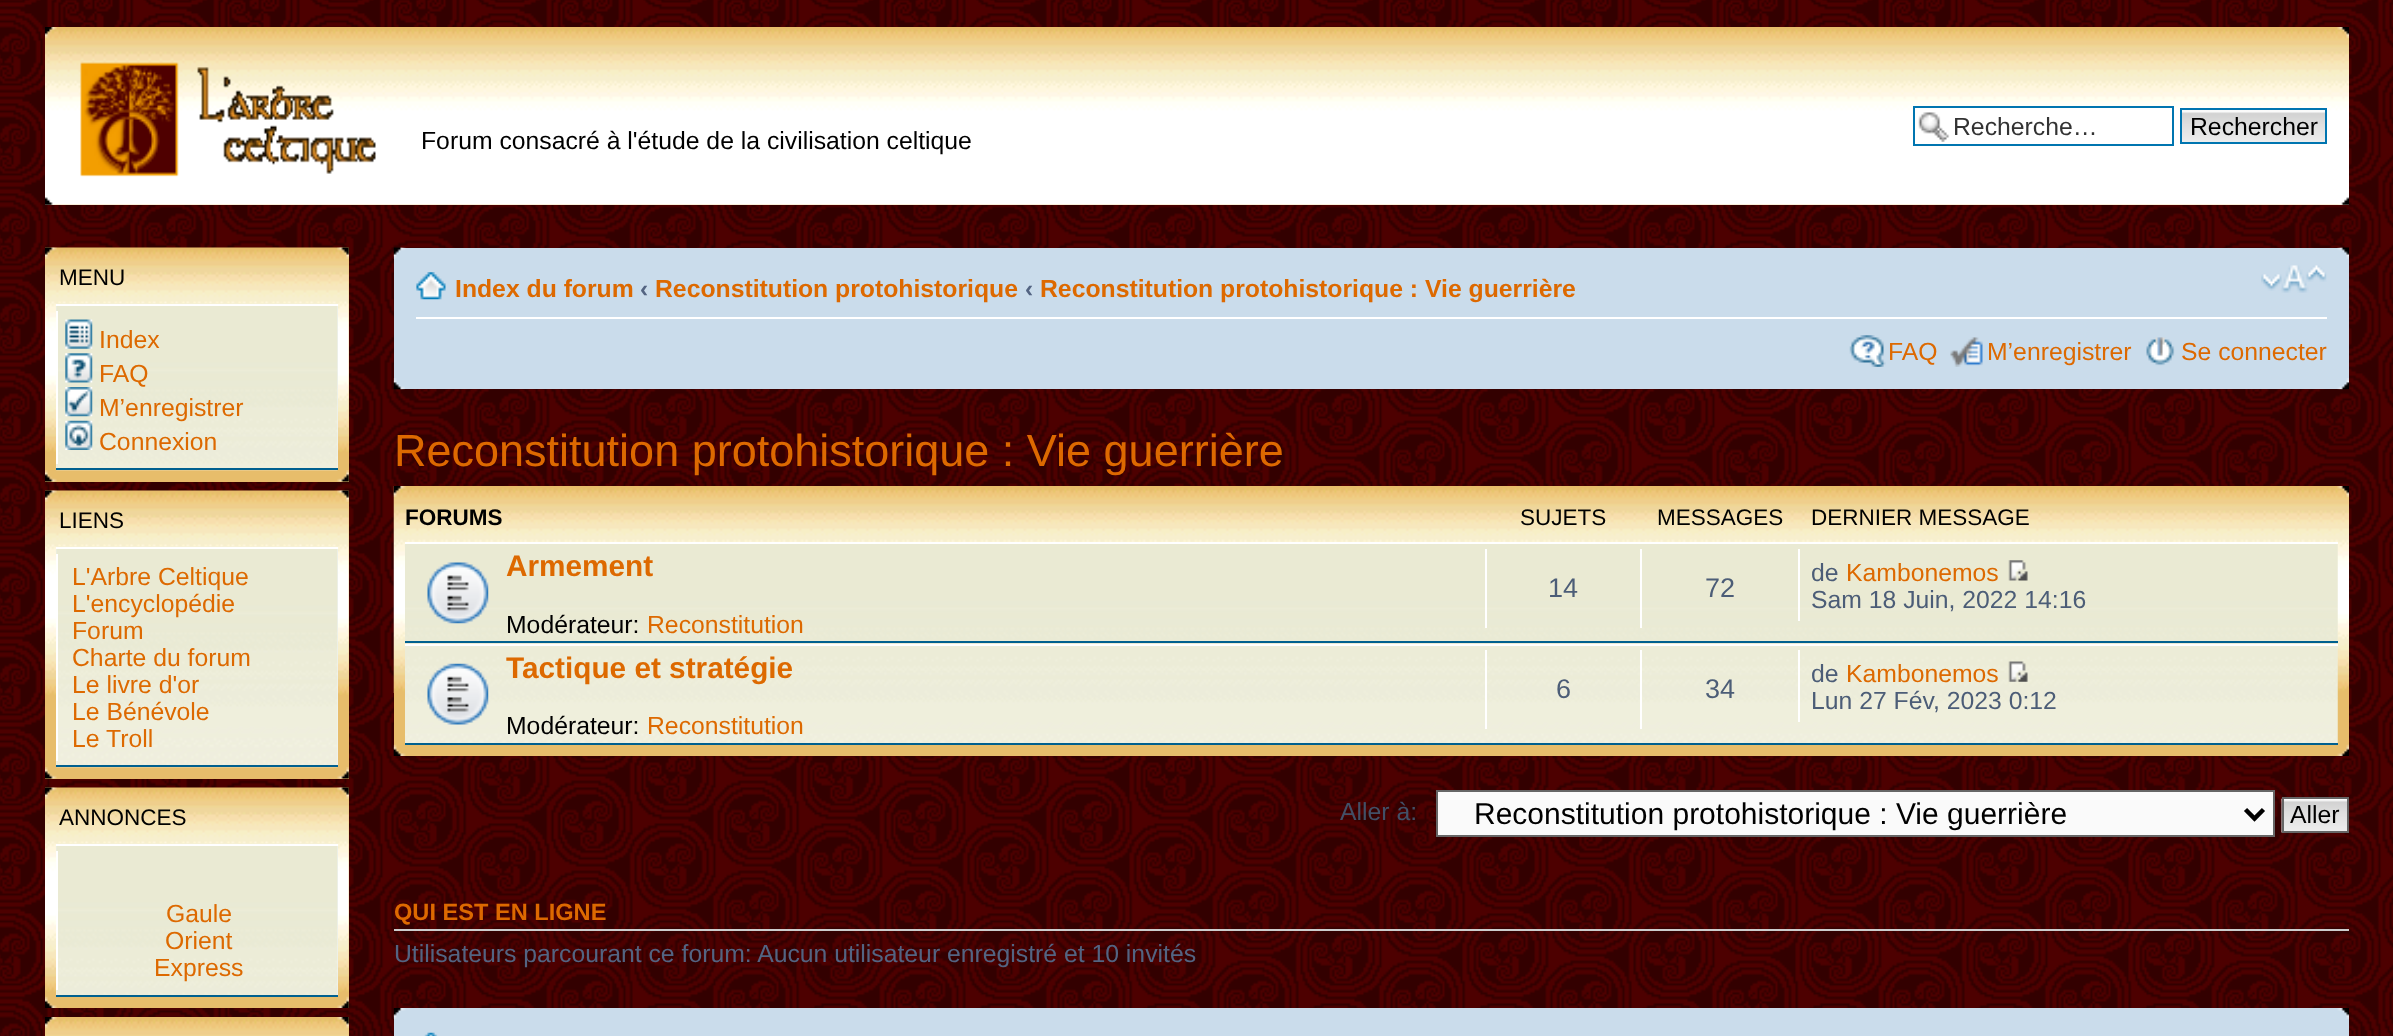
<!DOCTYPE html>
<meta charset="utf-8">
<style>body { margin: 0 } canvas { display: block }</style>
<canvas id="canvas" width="2393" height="1036"></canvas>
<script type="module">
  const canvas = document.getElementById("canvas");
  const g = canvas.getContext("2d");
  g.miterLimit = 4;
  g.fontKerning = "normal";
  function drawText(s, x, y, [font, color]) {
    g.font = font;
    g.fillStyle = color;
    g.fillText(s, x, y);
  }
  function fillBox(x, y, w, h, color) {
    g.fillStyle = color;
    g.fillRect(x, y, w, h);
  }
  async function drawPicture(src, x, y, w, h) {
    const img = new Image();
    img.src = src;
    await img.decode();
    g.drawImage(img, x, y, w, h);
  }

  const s1 = ["24.75px Liberation Sans", "#333333"];
  const s2 = ["24.75px Liberation Sans", "#000000"];
  const s3 = ["22.5px Liberation Sans", "#000000"];
  const s4 = ["24.75px Liberation Sans", "#DD6900"];
  const s5 = ["bold 24.75px Liberation Sans", "#DD6900"];
  const s6 = ["bold 24.75px Liberation Sans", "#536482"];
  const s7 = ["45px Liberation Sans", "#DD6900"];
  const s8 = ["bold 22.5px Liberation Sans", "#000000"];
  const s9 = ["bold 29.75px Liberation Sans", "#DD6900"];
  const s10 = ["27px Liberation Sans", "#4C5D77"];
  const s11 = ["24.75px Liberation Sans", "#4C5D77"];
  const s12 = ["24.75px Liberation Sans", "#425067"];
  const s13 = ["30px Liberation Sans", "#000000"];
  const s14 = ["bold 23.6px Liberation Sans", "#DD6900"];
  const s15 = ["24.75px Liberation Sans", "#536482"];

  fillBox(0, 0, 2393, 1036, "#FFFFFF");
  await drawPicture("pic1.png", 0, 0, 2393, 1036);
  fillBox(45, 27, 2304, 178, "#E7BD6B");
  await drawPicture("pic2.png", 45, 29, 2304, 176);
  await drawPicture("pic3.png", 45, 27, 12, 12);
  await drawPicture("pic4.png", 2337, 27, 12, 12);
  fillBox(1915, 108, 257, 3, "#FFFFFF");
  await drawPicture("pic5.png", 1918, 112, 32, 30);
  g.strokeStyle = "#0075B0";
  g.lineWidth = 2;
  g.strokeRect(1914, 107, 259, 38);
  drawText("Recherche…", 1953, 135, s1);
  fillBox(2182, 110, 143, 2, "#FAFAFA");
  await drawPicture("pic6.png", 2182, 112, 143, 30);
  g.strokeRect(2181, 109, 145, 34);
  drawText("Rechercher", 2190, 135, s2);
  await drawPicture("pic7.png", 80, 62, 296, 115);
  drawText("Forum consacré à l'étude de la civilisation celtique", 421, 149, s2);
  await drawPicture("pic8.png", 45, 197, 11, 8);
  await drawPicture("pic9.png", 2338, 197, 11, 8);
  fillBox(45, 248, 304, 234, "#E7BD6B");
  await drawPicture("pic10.png", 45, 247, 304, 205);
  await drawPicture("pic11.png", 45, 247, 12, 12);
  await drawPicture("pic12.png", 337, 247, 12, 12);
  drawText("MENU", 59, 285, s3);
  fillBox(56, 306, 282, 162, "#EEF5F9");
  await drawPicture("pic13.png", 56, 303, 282, 168);
  fillBox(56, 304, 282, 2, "#FFFFFF");
  fillBox(56, 468, 282, 2, "#00608F");
  fillBox(56, 311, 2, 153, "#FFFFFF");
  await drawPicture("pic14.png", 65, 319, 28, 30);
  drawText("Index", 99, 348, s4);
  await drawPicture("pic15.png", 65, 353, 28, 30);
  drawText("FAQ", 99, 382, s4);
  await drawPicture("pic16.png", 65, 387, 28, 30);
  drawText("M’enregistrer", 99, 416, s4);
  await drawPicture("pic17.png", 65, 420, 28, 30);
  drawText("Connexion", 99, 450, s4);
  await drawPicture("pic18.png", 45, 470, 12, 12);
  await drawPicture("pic19.png", 337, 470, 12, 12);
  fillBox(45, 491, 304, 288, "#E7BD6B");
  await drawPicture("pic20.png", 45, 490, 304, 205);
  await drawPicture("pic21.png", 45, 490, 12, 12);
  await drawPicture("pic22.png", 337, 490, 12, 12);
  drawText("LIENS", 59, 528, s3);
  fillBox(56, 549, 282, 216, "#EEF5F9");
  await drawPicture("pic23.png", 56, 546, 282, 222);
  fillBox(56, 547, 282, 2, "#FFFFFF");
  fillBox(56, 765, 282, 2, "#00608F");
  fillBox(56, 554, 2, 207, "#FFFFFF");
  drawText("L'Arbre Celtique", 72, 585, s4);
  drawText("L'encyclopédie", 72, 612, s4);
  drawText("Forum", 72, 639, s4);
  drawText("Charte du forum", 72, 666, s4);
  drawText("Le livre d'or", 72, 693, s4);
  drawText("Le Bénévole", 72, 720, s4);
  drawText("Le Troll", 72, 747, s4);
  await drawPicture("pic24.png", 45, 767, 12, 12);
  await drawPicture("pic19.png", 337, 767, 12, 12);
  fillBox(45, 788, 304, 220, "#E7BD6B");
  await drawPicture("pic25.png", 45, 787, 304, 205);
  await drawPicture("pic11.png", 45, 787, 12, 12);
  await drawPicture("pic12.png", 337, 787, 12, 12);
  drawText("ANNONCES", 59, 825, s3);
  fillBox(56, 846, 282, 149, "#EEF5F9");
  await drawPicture("pic26.png", 56, 843, 282, 152);
  fillBox(56, 844, 282, 2, "#FFFFFF");
  fillBox(56, 995, 282, 2, "#00608F");
  fillBox(56, 851, 2, 139, "#FFFFFF");
  drawText("Gaule", 166, 922, s4);
  drawText("Orient", 165, 949, s4);
  drawText("Express", 154, 976, s4);
  await drawPicture("pic27.png", 45, 996, 12, 12);
  await drawPicture("pic28.png", 337, 996, 12, 12);
  fillBox(49, 1017, 300, 19, "#E7BD6B");
  await drawPicture("pic29.png", 45, 1019, 304, 17);
  await drawPicture("pic30.png", 45, 1017, 12, 12);
  await drawPicture("pic31.png", 337, 1017, 12, 12);
  fillBox(394, 248, 1955, 141, "#CADCEB");
  await drawPicture("pic32.png", 393, 247, 13, 12);
  await drawPicture("pic33.png", 2337, 247, 12, 12);
  fillBox(416, 317, 1911, 2, "#FFFFFF");
  await drawPicture("pic34.png", 416, 272, 30, 28);
  drawText("Index du forum", 455, 297, s5);
  drawText("‹", 640, 297, s6);
  drawText("Reconstitution protohistorique", 655, 297, s5);
  drawText("‹", 1025, 297, s6);
  drawText("Reconstitution protohistorique : Vie guerrière", 1040, 297, s5);
  await drawPicture("pic35.png", 2261, 265, 66, 28);
  await drawPicture("pic36.png", 1849, 335, 37, 32);
  drawText("FAQ", 1888, 360, s4);
  await drawPicture("pic37.png", 1950, 337, 33, 30);
  drawText("M’enregistrer", 1987, 360, s4);
  await drawPicture("pic38.png", 2146, 337, 29, 29);
  drawText("Se connecter", 2181, 360, s4);
  await drawPicture("pic39.png", 393, 378, 12, 12);
  await drawPicture("pic40.png", 2337, 378, 12, 12);
  drawText("Reconstitution protohistorique : Vie guerrière", 394, 466, s7);
  fillBox(394, 693, 1955, 63, "#E7BD6B");
  await drawPicture("pic41.png", 393, 486, 1956, 207);
  await drawPicture("pic42.png", 393, 486, 13, 12);
  await drawPicture("pic43.png", 2337, 486, 12, 12);
  drawText("FORUMS", 405, 525, s8);
  drawText("SUJETS", 1520, 525, s3);
  drawText("MESSAGES", 1657, 525, s3);
  drawText("DERNIER MESSAGE", 1811, 525, s3);
  await drawPicture("pic44.png", 405, 544, 1933, 199);
  fillBox(405, 542, 1933, 2, "#FFFFFF");
  fillBox(405, 641, 1933, 2, "#00608F");
  await drawPicture("pic45.png", 427, 562, 62, 62);
  drawText("Armement", 506, 576, s9);
  drawText("Modérateur:", 506, 633, s2);
  drawText("Reconstitution", 647, 633, s4);
  fillBox(1485, 549, 2, 79, "#FFFFFF");
  drawText("14", 1548, 597, s10);
  fillBox(1640, 549, 2, 79, "#FFFFFF");
  drawText("72", 1705, 597, s10);
  fillBox(1798, 549, 2, 72, "#FFFFFF");
  drawText("de", 1811, 581, s11);
  drawText("Kambonemos", 1846, 581, s4);
  await drawPicture("pic46.png", 2008, 560, 20, 21);
  drawText("Sam 18 Juin, 2022 14:16", 1811, 608, s11);
  fillBox(405, 644, 1933, 2, "#FFFFFF");
  fillBox(405, 743, 1933, 2, "#00608F");
  await drawPicture("pic47.png", 427, 663, 62, 62);
  drawText("Tactique et stratégie", 506, 678, s9);
  drawText("Modérateur:", 506, 734, s2);
  drawText("Reconstitution", 647, 734, s4);
  fillBox(1485, 650, 2, 79, "#FFFFFF");
  drawText("6", 1556, 698, s10);
  fillBox(1640, 650, 2, 79, "#FFFFFF");
  drawText("34", 1705, 698, s10);
  fillBox(1798, 650, 2, 72, "#FFFFFF");
  drawText("de", 1811, 682, s11);
  drawText("Kambonemos", 1846, 682, s4);
  await drawPicture("pic48.png", 2008, 661, 20, 21);
  drawText("Lun 27 Fév, 2023 0:12", 1811, 709, s11);
  await drawPicture("pic49.png", 393, 744, 13, 12);
  await drawPicture("pic50.png", 2337, 744, 12, 12);
  drawText("Aller à:", 1340, 820, s12);
  g.fillStyle = "#FAFAFA";
  g.beginPath();
  g.rect(1437, 791, 837, 45);
  g.fill();
  g.strokeStyle = "#666666";
  g.stroke();
  g.beginPath();
  g.moveTo(2245.5, 809.5);
  g.lineTo(2254.5, 818.5);
  g.lineTo(2263.5, 809.5);
  g.strokeStyle = "#000000";
  g.lineWidth = 4.5;
  g.stroke();
  drawText("Reconstitution protohistorique : Vie guerrière", 1474, 824, s13);
  await drawPicture("pic51.png", 2281, 798, 66, 35);
  g.strokeStyle = "#666666";
  g.lineWidth = 2;
  g.strokeRect(2283, 798, 65, 34);
  drawText("Aller", 2290, 823, s2);
  fillBox(394, 929, 1955, 2, "#CCCCCC");
  drawText("QUI EST EN LIGNE", 394, 920, s14);
  drawText("Utilisateurs parcourant ce forum: Aucun utilisateur enregistré et 10 invités", 394, 962, s15);
  fillBox(394, 1008, 1955, 28, "#CADCEB");
  await drawPicture("pic52.png", 393, 1008, 13, 11);
  await drawPicture("pic53.png", 2337, 1008, 12, 11);
  await drawPicture("pic54.png", 424, 1032, 14, 4);
</script>
